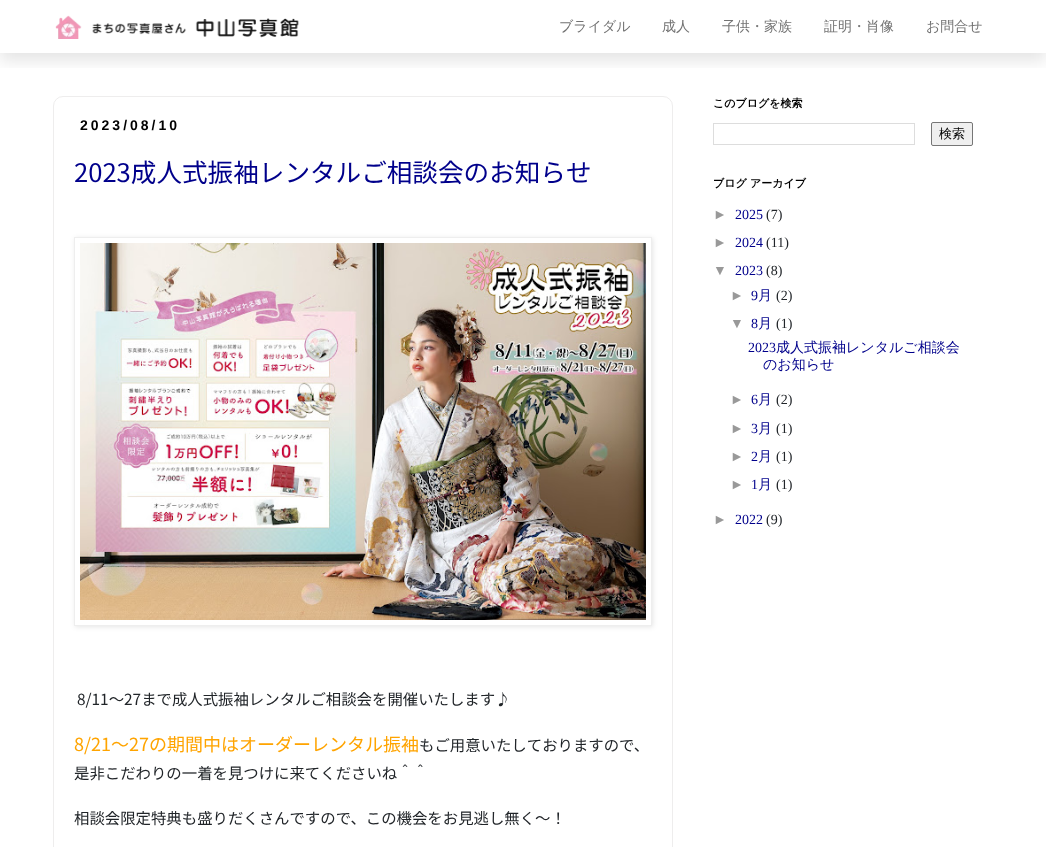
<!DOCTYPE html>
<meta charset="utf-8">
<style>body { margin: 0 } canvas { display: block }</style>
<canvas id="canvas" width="1046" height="847"></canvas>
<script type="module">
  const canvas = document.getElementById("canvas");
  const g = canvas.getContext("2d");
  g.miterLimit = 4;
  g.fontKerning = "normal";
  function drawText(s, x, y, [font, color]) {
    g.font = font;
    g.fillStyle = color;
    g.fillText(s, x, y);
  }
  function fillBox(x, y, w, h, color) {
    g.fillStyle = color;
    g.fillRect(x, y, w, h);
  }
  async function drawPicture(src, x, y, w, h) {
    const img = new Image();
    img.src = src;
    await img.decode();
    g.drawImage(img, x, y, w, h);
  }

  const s1 = ["500 14px WenQuanYi Zen Hei", "#737373"];
  const s2 = ["bold 14px Liberation Sans", "#000000"];
  const s3 = ["25.6px Noto Sans JP", "#00008B"];
  const s4 = ["15.4px Noto Sans JP", "#212529"];
  const s5 = ["18px Noto Sans JP", "#FFA400"];
  const s6 = ["bold 11px WenQuanYi Zen Hei", "#000000"];
  const s7 = ["500 13px WenQuanYi Zen Hei", "#000000"];
  const s8 = ["14px Liberation Sans", "#999999"];
  const s9 = ["14px Liberation Serif", "#00008B"];
  const s10 = ["14px Liberation Serif", "#212529"];
  const s11 = ["500 14px WenQuanYi Zen Hei", "#00008B"];

  fillBox(0, 0, 1046, 847, "#FFFFFF");
  g.save();
  g.beginPath();
  g.rect(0, 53, 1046, 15);
  g.clip();
  g.fillStyle = "rgba(0, 0, 0, 0.1)";
  g.filter = "blur(8px)";
  g.beginPath();
  g.rect(0, 8, 1046, 53);
  g.fill();
  g.filter = "none";
  g.restore();
  await drawPicture("pic1.png", 55, 15, 244, 24);
  drawText("ブライダル", 559, 31, s1);
  drawText("成人", 662, 31, s1);
  drawText("子供・家族", 722, 31, s1);
  drawText("証明・肖像", 824, 31, s1);
  drawText("お問合せ", 926, 31, s1);
  g.beginPath();
  g.roundRect(53.5, 96.5, 619, 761, 9.5);
  g.strokeStyle = "#EEEDED";
  g.stroke();
  g.letterSpacing = "3px";
  drawText("2023/08/10", 80, 130, s2);
  g.letterSpacing = "0px";
  drawText("2023成人式振袖レンタルご相談会のお知らせ", 74, 182, s3);
  g.save();
  g.beginPath();
  g.moveTo(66, 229);
  g.lineTo(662, 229);
  g.lineTo(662, 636);
  g.lineTo(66, 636);
  g.closePath();
  g.moveTo(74, 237);
  g.lineTo(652, 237);
  g.lineTo(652, 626);
  g.lineTo(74, 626);
  g.closePath();
  g.clip("evenodd");
  g.fillStyle = "rgba(0, 0, 0, 0.1)";
  g.filter = "blur(2.5px)";
  g.beginPath();
  g.rect(75, 238, 578, 389);
  g.fill();
  g.filter = "none";
  g.restore();
  g.strokeStyle = "#EEEEEE";
  g.strokeRect(74.5, 237.5, 577, 388);
  await drawPicture("pic2.png", 80, 243, 566, 377);
  drawText("8/11～27まで成人式振袖レンタルご相談会を開催いたします♪", 77, 705, s4);
  drawText("8/21～27の期間中はオーダーレンタル振袖", 74, 751, s5);
  drawText("もご用意いたしておりますので、", 419, 751, s4);
  drawText("是非こだわりの一着を見つけに来てくださいね＾＾", 74, 779, s4);
  drawText("相談会限定特典も盛りだくさんですので、この機会をお見逃し無く～！", 74, 824, s4);
  drawText("このブログを検索", 713, 107, s6);
  g.strokeStyle = "#DDDDDD";
  g.strokeRect(713.5, 123.5, 201, 21);
  g.fillStyle = "#EFEFEF";
  g.beginPath();
  g.roundRect(931.5, 122.5, 41, 23, 1.5);
  g.fill();
  g.strokeStyle = "#767676";
  g.stroke();
  drawText("検索", 939, 138, s7);
  drawText("ブログ アーカイブ", 713, 187, s6);
  drawText("►", 713, 219, s8);
  drawText("2025", 735, 219, s9);
  drawText("(7)", 766, 219, s10);
  drawText("►", 713, 247, s8);
  drawText("2024", 735, 247, s9);
  drawText("(11)", 766, 247, s10);
  drawText("▼", 713, 275, s8);
  drawText("2023", 735, 275, s9);
  drawText("(8)", 766, 275, s10);
  drawText("►", 730, 300, s8);
  drawText("9", 751, 300, s9);
  drawText("月", 758, 300, s11);
  drawText("(2)", 776, 300, s10);
  drawText("▼", 730, 328, s8);
  drawText("8", 751, 328, s9);
  drawText("月", 758, 328, s11);
  drawText("(1)", 776, 328, s10);
  drawText("2023", 748, 352, s9);
  drawText("成人式振袖レンタルご相談会", 776, 352, s11);
  drawText("のお知らせ", 763, 369, s11);
  drawText("►", 730, 404, s8);
  drawText("6", 751, 404, s9);
  drawText("月", 758, 404, s11);
  drawText("(2)", 776, 404, s10);
  drawText("►", 730, 433, s8);
  drawText("3", 751, 433, s9);
  drawText("月", 758, 433, s11);
  drawText("(1)", 776, 433, s10);
  drawText("►", 730, 461, s8);
  drawText("2", 751, 461, s9);
  drawText("月", 758, 461, s11);
  drawText("(1)", 776, 461, s10);
  drawText("►", 730, 489, s8);
  drawText("1", 751, 489, s9);
  drawText("月", 758, 489, s11);
  drawText("(1)", 776, 489, s10);
  drawText("►", 713, 524, s8);
  drawText("2022", 735, 524, s9);
  drawText("(9)", 766, 524, s10);
</script>
